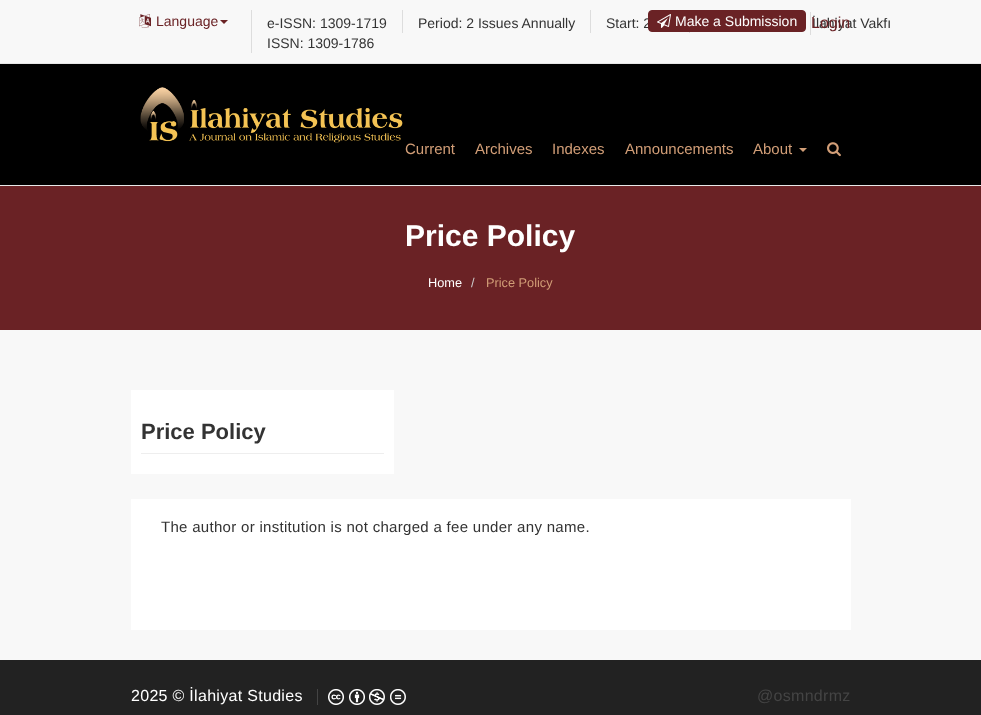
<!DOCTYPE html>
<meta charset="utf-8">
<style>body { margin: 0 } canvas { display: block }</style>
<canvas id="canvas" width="981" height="715"></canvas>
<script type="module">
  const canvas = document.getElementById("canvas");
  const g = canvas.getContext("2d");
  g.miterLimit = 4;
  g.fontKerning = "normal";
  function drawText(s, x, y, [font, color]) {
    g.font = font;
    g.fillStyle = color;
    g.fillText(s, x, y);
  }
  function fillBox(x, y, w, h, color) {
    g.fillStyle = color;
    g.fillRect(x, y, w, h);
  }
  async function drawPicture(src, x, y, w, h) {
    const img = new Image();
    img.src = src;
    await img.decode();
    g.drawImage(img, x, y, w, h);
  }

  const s1 = ["14px Liberation Sans", "#6A2225"];
  const s2 = ["14px Liberation Sans", "#333333"];
  const s3 = ["14px Liberation Sans", "#FFFFFF"];
  const s4 = ["16px Liberation Sans", "#6A2225"];
  const s5 = ["15px Liberation Sans", "#D29E77"];
  const s6 = ["bold 30px Liberation Sans", "#FFFFFF"];
  const s7 = ["12.75px Liberation Sans", "#FFFFFF"];
  const s8 = ["12.75px Liberation Sans", "#CCCCCC"];
  const s9 = ["12.75px Liberation Sans", "#D29E77"];
  const s10 = ["bold 22px Liberation Sans", "#333333"];
  const s11 = ["15px Liberation Sans", "#333333"];
  const s12 = ["16px Liberation Sans", "#FFFFFF"];
  const s13 = ["16px Liberation Sans", "#444444"];

  fillBox(0, 0, 981, 715, "#F8F8F8");
  await drawPicture("pic1.png", 139, 14, 12, 14);
  drawText("Language", 156, 26, s1);
  g.beginPath();
  g.moveTo(220, 20);
  g.lineTo(228, 20);
  g.lineTo(224, 24);
  g.closePath();
  g.fill();
  fillBox(251, 10, 1, 43, "#DDDDDD");
  drawText("e-ISSN: 1309-1719", 267, 28, s2);
  drawText("ISSN: 1309-1786", 267, 48, s2);
  fillBox(402, 10, 1, 23, "#DDDDDD");
  drawText("Period: 2 Issues Annually", 418, 28, s2);
  fillBox(590, 10, 1, 23, "#DDDDDD");
  drawText("Start: 2", 606, 28, s2);
  fillBox(689, 32, 1, 1, "#DDDDDD");
  drawText("İlahiyat Vakfı", 812, 28, s2);
  g.fillStyle = "#6A2225";
  g.beginPath();
  g.roundRect(648.5, 10.5, 157, 21, 3.5);
  g.fill();
  g.strokeStyle = "#6A2225";
  g.stroke();
  await drawPicture("pic2.png", 657, 14, 14, 14);
  drawText("Make a Submission", 675, 26, s3);
  fillBox(810, 12, 1, 23, "#DDDDDD");
  drawText("Login", 811, 28, s4);
  fillBox(0, 64, 981, 121, "#000000");
  fillBox(0, 63, 981, 1, "#E7E7E7");
  fillBox(0, 185, 981, 1, "#E7E7E7");
  await drawPicture("pic3.png", 140, 87, 263, 56);
  drawText("Current", 405, 154, s5);
  drawText("Archives", 475, 154, s5);
  drawText("Indexes", 552, 154, s5);
  drawText("Announcements", 625, 154, s5);
  drawText("About", 753, 154, s5);
  g.beginPath();
  g.moveTo(799, 148);
  g.lineTo(807, 148);
  g.lineTo(803, 152);
  g.closePath();
  g.fill();
  await drawPicture("pic4.png", 827, 142, 14, 15);
  fillBox(0, 186, 981, 144, "#6A2225");
  drawText("Price Policy", 405, 246, s6);
  drawText("Home", 428, 287, s7);
  drawText("/", 471, 287, s8);
  drawText("Price Policy", 486, 287, s9);
  fillBox(131, 390, 263, 84, "#FFFFFF");
  fillBox(141, 453, 243, 1, "#EEEEEE");
  drawText("Price Policy", 141, 439, s10);
  fillBox(131, 499, 720, 131, "#FFFFFF");
  g.letterSpacing = "0.3px";
  drawText("The author or institution is not charged a fee under any name.", 161, 532, s11);
  fillBox(0, 660, 981, 55, "#222222");
  drawText("2025 © İlahiyat Studies", 131, 701, s12);
  fillBox(317, 689, 1, 16, "#444444");
  await drawPicture("pic5.png", 328, 689, 16, 16);
  await drawPicture("pic6.png", 349, 689, 16, 16);
  await drawPicture("pic7.png", 369, 689, 16, 16);
  await drawPicture("pic8.png", 390, 689, 16, 16);
  drawText("@osmndrmz", 757, 701, s13);
</script>
